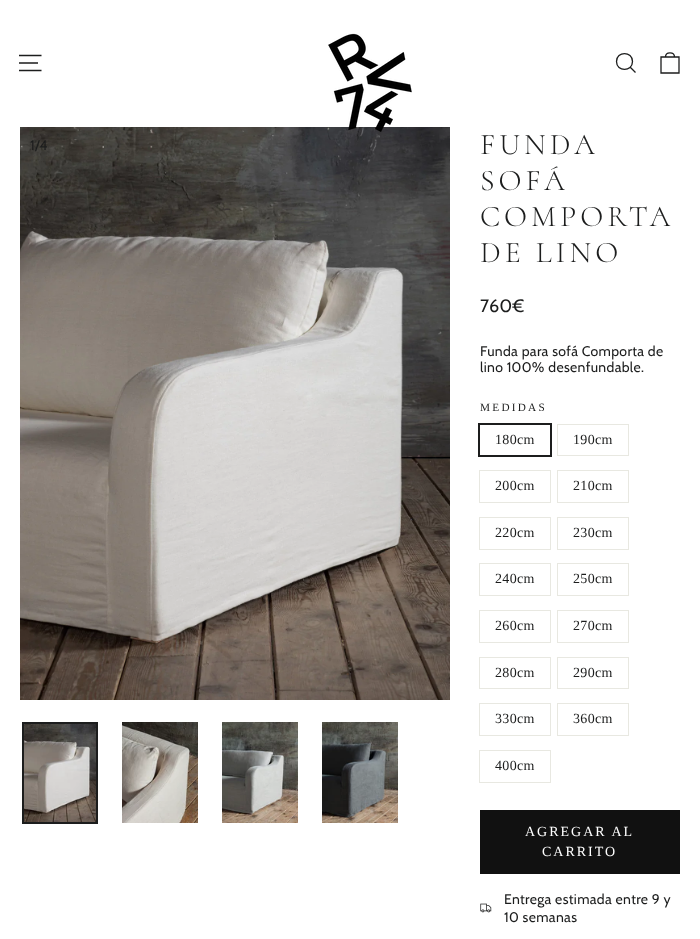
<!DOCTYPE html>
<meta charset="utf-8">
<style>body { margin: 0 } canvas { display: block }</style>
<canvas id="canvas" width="700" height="939"></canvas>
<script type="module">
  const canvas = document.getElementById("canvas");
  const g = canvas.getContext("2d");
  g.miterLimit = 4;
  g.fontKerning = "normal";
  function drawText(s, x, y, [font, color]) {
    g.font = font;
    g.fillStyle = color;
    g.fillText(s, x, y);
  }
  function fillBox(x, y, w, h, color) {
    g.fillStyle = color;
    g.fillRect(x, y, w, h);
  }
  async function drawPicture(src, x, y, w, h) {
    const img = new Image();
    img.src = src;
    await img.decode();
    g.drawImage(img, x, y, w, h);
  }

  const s1 = ["14px Cabin", "#1C1D1D"];
  const s2 = ["300 30px Cormorant", "#1C1D1D"];
  const s3 = ["18px Cabin", "#1C1D1D"];
  const s4 = ["11.25px Liberation Serif", "#1C1D1D"];
  const s5 = ["14px Liberation Serif", "#1C1D1D"];
  const s6 = ["14px Liberation Serif", "#FFFFFF"];

  fillBox(0, 0, 700, 939, "#FFFFFF");
  g.beginPath();
  g.moveTo(19, 55.5);
  g.lineTo(41.5, 55.5);
  g.moveTo(19, 63);
  g.lineTo(38, 63);
  g.moveTo(19, 70.5);
  g.lineTo(41.5, 70.5);
  g.strokeStyle = "#1C1D1D";
  g.lineWidth = 1.3;
  g.stroke();
  await drawPicture("pic2.png", 20, 127, 430, 573);
  await drawPicture("pic1.png", 328, 33, 84, 99);
  g.beginPath();
  g.moveTo(632.5, 61.5);
  g.bezierCurveTo(632.5, 72, 616.5, 72, 616.5, 61.5);
  g.bezierCurveTo(616.5, 51, 632.5, 51, 632.5, 61.5);
  g.closePath();
  g.moveTo(635.5, 72.5);
  g.lineTo(630.5, 67.5);
  g.stroke();
  g.beginPath();
  g.moveTo(661, 57);
  g.lineTo(679, 57);
  g.lineTo(679, 73);
  g.lineTo(661, 73);
  g.closePath();
  g.moveTo(665.5, 57);
  g.bezierCurveTo(665.5, 51.5, 674.5, 51.5, 674.5, 57);
  g.stroke();
  g.letterSpacing = "0.35px";
  drawText("1/4", 30, 150, s1);
  await drawPicture("pic3.png", 24, 724, 72, 98);
  g.lineWidth = 2;
  g.strokeRect(23, 723, 74, 100);
  await drawPicture("pic4.png", 122, 722, 76, 101);
  await drawPicture("pic5.png", 222, 722, 76, 101);
  await drawPicture("pic6.png", 322, 722, 76, 101);
  g.letterSpacing = "4px";
  drawText("FUNDA", 480, 154, s2);
  drawText("SOFÁ", 480, 190, s2);
  drawText("COMPORTA", 480, 226, s2);
  drawText("DE LINO", 480, 262, s2);
  g.letterSpacing = "0.35px";
  drawText("760€", 480, 312, s3);
  drawText("Funda para sofá Comporta de", 480, 356, s1);
  drawText("lino 100% desenfundable.", 480, 372, s1);
  g.letterSpacing = "2.25px";
  drawText("MEDIDAS", 480, 411, s4);
  g.strokeRect(479, 424, 72, 32);
  g.letterSpacing = "0.35px";
  drawText("180cm", 495, 444, s5);
  g.strokeStyle = "#E8E8E1";
  g.lineWidth = 1;
  g.strokeRect(557.5, 424.5, 71, 31);
  drawText("190cm", 573, 444, s5);
  g.strokeRect(479.5, 470.5, 71, 32);
  drawText("200cm", 495, 490, s5);
  g.strokeRect(557.5, 470.5, 71, 32);
  drawText("210cm", 573, 490, s5);
  g.strokeRect(479.5, 517.5, 71, 32);
  drawText("220cm", 495, 537, s5);
  g.strokeRect(557.5, 517.5, 71, 32);
  drawText("230cm", 573, 537, s5);
  g.strokeRect(479.5, 563.5, 71, 32);
  drawText("240cm", 495, 583, s5);
  g.strokeRect(557.5, 563.5, 71, 32);
  drawText("250cm", 573, 583, s5);
  g.strokeRect(479.5, 610.5, 71, 32);
  drawText("260cm", 495, 630, s5);
  g.strokeRect(557.5, 610.5, 71, 32);
  drawText("270cm", 573, 630, s5);
  g.strokeRect(479.5, 657.5, 71, 31);
  drawText("280cm", 495, 677, s5);
  g.strokeRect(557.5, 657.5, 71, 31);
  drawText("290cm", 573, 677, s5);
  g.strokeRect(479.5, 703.5, 71, 32);
  drawText("330cm", 495, 723, s5);
  g.strokeRect(557.5, 703.5, 71, 32);
  drawText("360cm", 573, 723, s5);
  g.strokeRect(479.5, 750.5, 71, 32);
  drawText("400cm", 495, 770, s5);
  fillBox(480, 810, 200, 64, "#111111");
  g.letterSpacing = "2px";
  drawText("AGREGAR AL", 525, 836, s6);
  drawText("CARRITO", 542, 856, s6);
  await drawPicture("pic7.png", 480, 903, 12, 10);
  g.letterSpacing = "0.35px";
  drawText("Entrega estimada entre 9 y", 504, 904, s1);
  drawText("10 semanas", 504, 922, s1);
</script>
